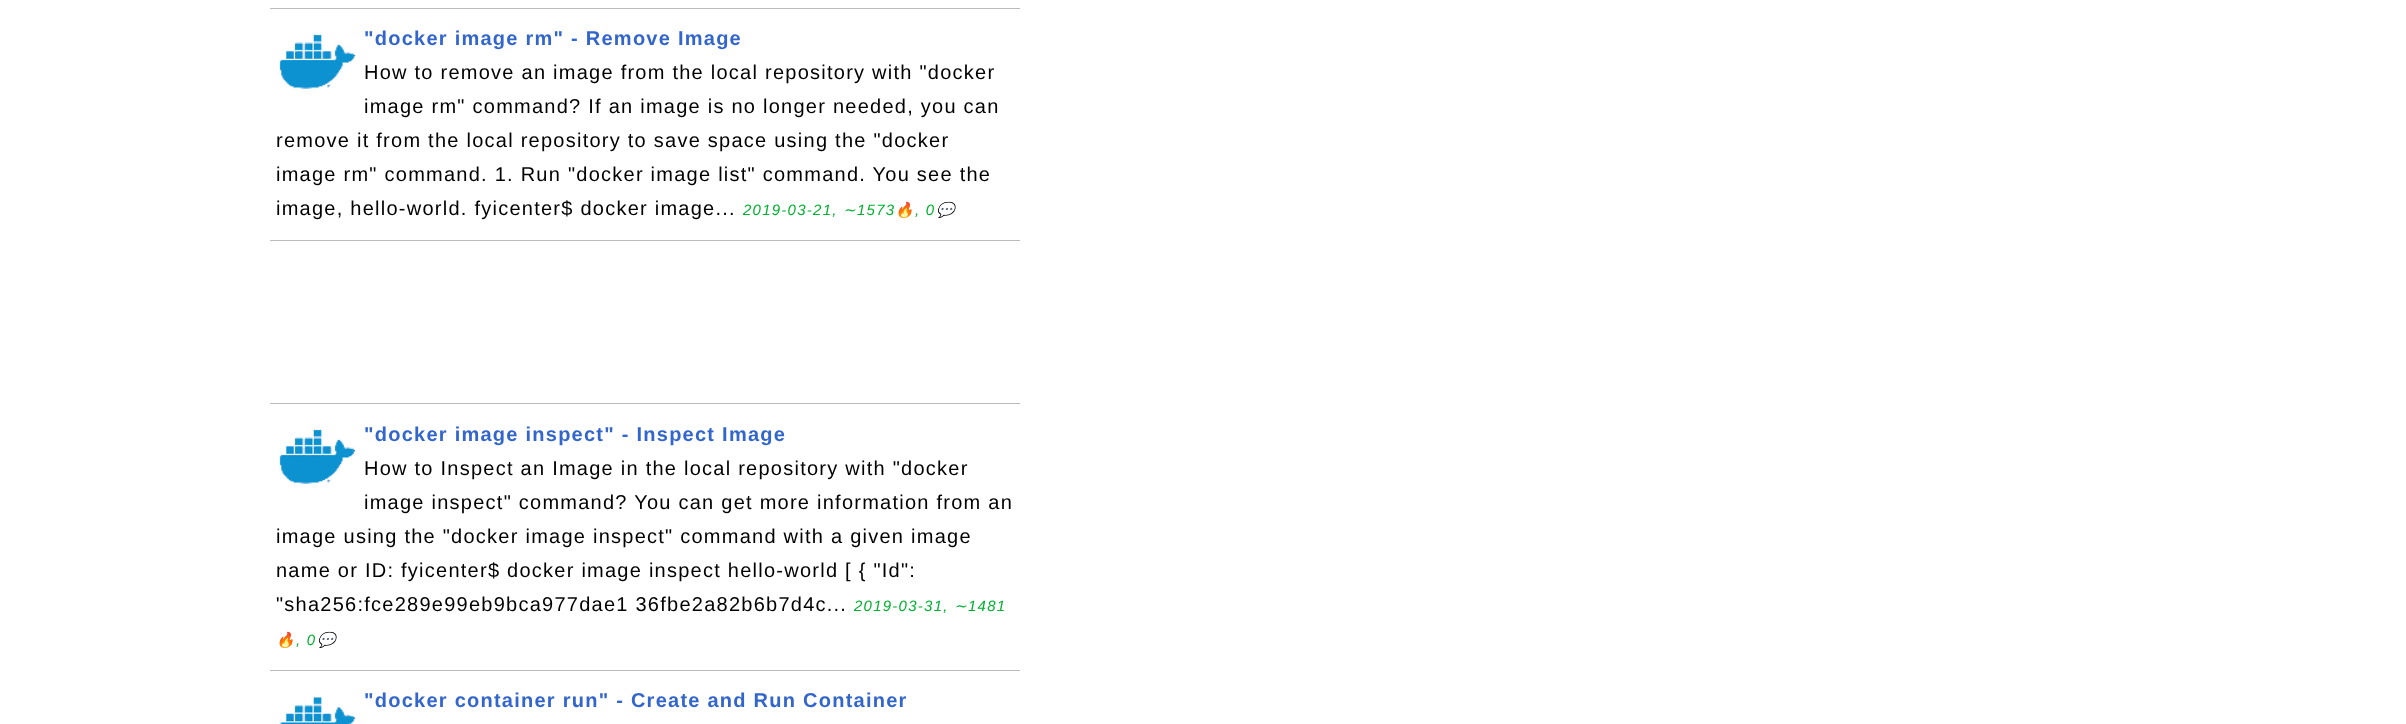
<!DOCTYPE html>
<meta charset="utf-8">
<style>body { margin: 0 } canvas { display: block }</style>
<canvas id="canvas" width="2406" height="724"></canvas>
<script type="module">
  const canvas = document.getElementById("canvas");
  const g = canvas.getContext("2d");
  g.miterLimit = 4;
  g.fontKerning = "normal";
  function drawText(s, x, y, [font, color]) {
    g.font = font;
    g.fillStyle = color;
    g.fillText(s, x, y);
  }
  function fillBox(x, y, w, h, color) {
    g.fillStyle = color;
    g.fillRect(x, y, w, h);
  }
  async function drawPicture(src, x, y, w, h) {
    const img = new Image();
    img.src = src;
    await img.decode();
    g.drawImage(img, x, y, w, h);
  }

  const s1 = ["bold 20px Liberation Sans", "#3366CC"];
  const s2 = ["20px Liberation Sans", "#000000"];
  const s3 = ["italic 15px Liberation Sans", "#00B030"];
  const s4 = ["italic 15px DejaVu Sans", "#00B030"];
  const s5 = ["italic 15px Noto Color Emoji", "#00B030"];

  fillBox(0, 0, 2406, 724, "#FFFFFF");
  fillBox(270, 8, 750, 1, "#BBBBBB");
  await drawPicture("pic1.png", 279, 32, 77, 58);
  g.letterSpacing = "1.25px";
  drawText("\"docker image rm\" - Remove Image", 364, 45, s1);
  drawText("How to remove an image from the local repository with \"docker", 364, 79, s2);
  drawText("image rm\" command? If an image is no longer needed, you can", 364, 113, s2);
  drawText("remove it from the local repository to save space using the \"docker", 276, 147, s2);
  drawText("image rm\" command. 1. Run \"docker image list\" command. You see the", 276, 181, s2);
  drawText("image, hello-world. fyicenter$ docker image...", 276, 215, s2);
  drawText("2019-03-21,", 743, 215, s3);
  drawText("∼", 843, 215, s4);
  drawText("1573", 857, 215, s3);
  drawText("🔥", 895, 215, s5);
  drawText(", 0", 915, 215, s3);
  drawText("💬", 936, 215, s5);
  fillBox(270, 240, 750, 1, "#BBBBBB");
  fillBox(270, 403, 750, 1, "#BBBBBB");
  await drawPicture("pic1.png", 279, 427, 77, 58);
  drawText("\"docker image inspect\" - Inspect Image", 364, 441, s1);
  drawText("How to Inspect an Image in the local repository with \"docker", 364, 475, s2);
  drawText("image inspect\" command? You can get more information from an", 364, 509, s2);
  drawText("image using the \"docker image inspect\" command with a given image", 276, 543, s2);
  drawText("name or ID: fyicenter$ docker image inspect hello-world [ { \"Id\":", 276, 577, s2);
  drawText("\"sha256:fce289e99eb9bca977dae1 36fbe2a82b6b7d4c...", 276, 611, s2);
  drawText("2019-03-31,", 854, 611, s3);
  drawText("∼", 954, 611, s4);
  drawText("1481", 968, 611, s3);
  drawText("🔥", 276, 645, s5);
  drawText(", 0", 296, 645, s3);
  drawText("💬", 317, 645, s5);
  fillBox(270, 670, 750, 1, "#BBBBBB");
  await drawPicture("pic2.png", 279, 695, 77, 29);
  drawText("\"docker container run\" - Create and Run Container", 364, 707, s1);
</script>
